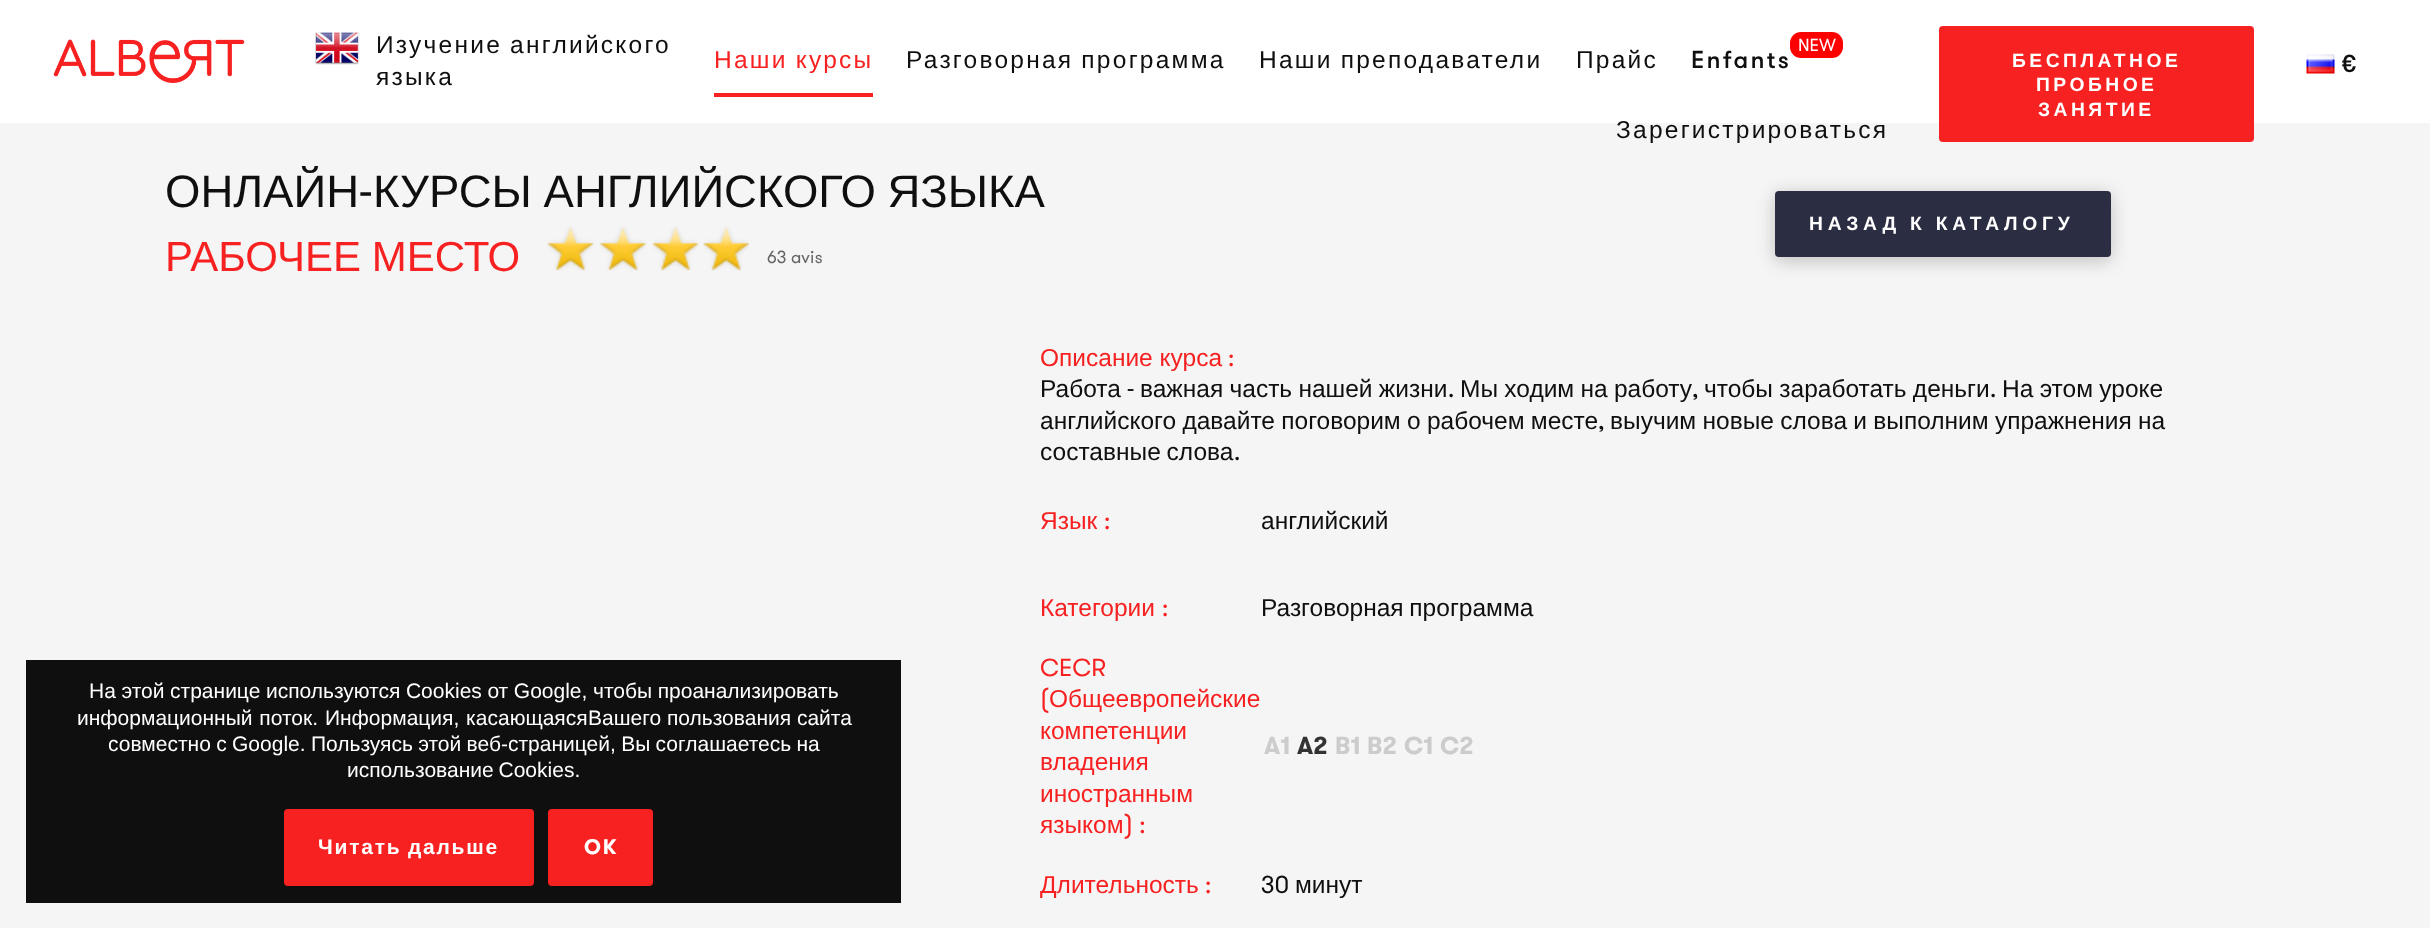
<!DOCTYPE html>
<meta charset="utf-8">
<style>body { margin: 0 } canvas { display: block }</style>
<canvas id="canvas" width="2430" height="928"></canvas>
<script type="module">
  const canvas = document.getElementById("canvas");
  const g = canvas.getContext("2d");
  g.miterLimit = 4;
  g.fontKerning = "normal";
  function drawText(s, x, y, [font, color]) {
    g.font = font;
    g.fillStyle = color;
    g.fillText(s, x, y);
  }
  function fillBox(x, y, w, h, color) {
    g.fillStyle = color;
    g.fillRect(x, y, w, h);
  }
  function fillRounded(x, y, w, h, r, color) {
    g.fillStyle = color;
    g.beginPath();
    g.roundRect(x, y, w, h, r);
    g.fill();
  }
  async function drawPicture(src, x, y, w, h) {
    const img = new Image();
    img.src = src;
    await img.decode();
    g.drawImage(img, x, y, w, h);
  }

  const s1 = ["24.5px Liberation Sans", "#0F0F0F"];
  const s2 = ["24.5px Liberation Sans", "#F72121"];
  const s3 = ["17.5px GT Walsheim", "#FFFFFF"];
  const s4 = ["500 24.5px GT Walsheim", "#0F0F0F"];
  const s5 = ["bold 19.25px Liberation Sans", "#FFFFFF"];
  const s6 = ["21px Liberation Sans", "#FFFFFF"];
  const s7 = ["bold 21px Liberation Sans", "#FFFFFF"];
  const s8 = ["bold 21px GT Walsheim", "#FFFFFF"];
  const s9 = ["45.5px Liberation Sans", "#0F0F0F"];
  const s10 = ["45.5px GT Walsheim", "#0F0F0F"];
  const s11 = ["42px Liberation Sans", "#F72121"];
  const s12 = ["17.5px GT Walsheim", "#666666"];
  const s13 = ["24.5px GT Walsheim", "#F72121"];
  const s14 = ["24.5px GT Walsheim", "#0F0F0F"];
  const s15 = ["bold 24.5px GT Walsheim", "#CCCCCC"];
  const s16 = ["bold 24.5px GT Walsheim", "#333333"];

  fillBox(0, 0, 2430, 928, "#F5F5F5");
  fillBox(0, 0, 2430, 123, "#FFFFFF");
  await drawPicture("pic1.png", 53, 39, 192, 45);
  await drawPicture("pic2.png", 315, 32, 44, 33);
  g.letterSpacing = "2.25px";
  g.wordSpacing = "-1px";
  drawText("Изучение английского", 376, 53, s1);
  g.wordSpacing = "0px";
  drawText("языка", 376, 85, s1);
  fillBox(714, 93, 159, 4, "#F72121");
  g.wordSpacing = "-1px";
  drawText("Наши курсы", 714, 68, s2);
  drawText("Разговорная программа", 906, 68, s1);
  drawText("Наши преподаватели", 1259, 68, s1);
  g.wordSpacing = "0px";
  drawText("Прайс", 1576, 68, s1);
  fillRounded(1790, 32, 53, 26, 11, "#FF0000");
  g.letterSpacing = "0px";
  drawText("NEW", 1798, 51, s3);
  g.letterSpacing = "2.25px";
  drawText("Enfants", 1691, 68, s4);
  drawText("Зарегистрироваться", 1616, 138, s1);
  fillRounded(1939, 26, 315, 116, 4, "#F72121");
  g.letterSpacing = "3.5px";
  drawText("БЕСПЛАТНОЕ", 2012, 67, s5);
  drawText("ПРОБНОЕ", 2036, 91, s5);
  drawText("ЗАНЯТИЕ", 2038, 116, s5);
  await drawPicture("pic3.png", 2306, 54, 29, 20);
  g.letterSpacing = "4.75px";
  drawText("€", 2342, 72, s4);
  fillBox(26, 660, 875, 243, "#0F0F0F");
  g.letterSpacing = "0px";
  g.wordSpacing = "-0.25px";
  drawText("На этой странице используются Cookies от Google, чтобы проанализировать", 89, 698, s6);
  g.wordSpacing = "1px";
  drawText("информационный поток. Информация, касающаяся", 77, 725, s6);
  g.wordSpacing = "0px";
  drawText("Вашего пользования сайта", 588, 725, s6);
  g.wordSpacing = "-0.5px";
  drawText("совместно с Google. Пользуясь этой веб-страницей, Вы соглашаетесь на", 108, 751, s6);
  g.wordSpacing = "-1px";
  drawText("использование Cookies.", 347, 777, s6);
  fillRounded(284, 809, 250, 77, 4, "#F72121");
  g.letterSpacing = "1.75px";
  drawText("Читать дальше", 318, 854, s7);
  fillRounded(548, 809, 105, 77, 4, "#F72121");
  g.wordSpacing = "0px";
  drawText("OK", 584, 854, s8);
  g.letterSpacing = "0px";
  drawText("ОНЛАЙН", 165, 207, s9);
  drawText("-", 359, 207, s10);
  g.wordSpacing = "-1px";
  drawText("КУРСЫ АНГЛИЙСКОГО ЯЗЫКА", 373, 207, s9);
  drawText("РАБОЧЕЕ МЕСТО", 165, 271, s11);
  await drawPicture("pic4.png", 547, 226, 47, 45);
  await drawPicture("pic5.png", 600, 226, 46, 45);
  await drawPicture("pic4.png", 652, 226, 47, 45);
  await drawPicture("pic6.png", 703, 226, 46, 45);
  g.wordSpacing = "0px";
  drawText("63 avis", 767, 263, s12);
  g.fillStyle = "rgba(0, 0, 0, 0.21)";
  g.filter = "blur(9px)";
  g.beginPath();
  g.roundRect(1775, 194, 336, 67, 4);
  g.fill();
  g.filter = "none";
  fillRounded(1775, 191, 336, 66, 4, "#2B2D42");
  g.letterSpacing = "4.75px";
  g.wordSpacing = "-1px";
  drawText("НАЗАД К КАТАЛОГУ", 1809, 230, s5);
  g.letterSpacing = "0px";
  g.wordSpacing = "0px";
  drawText("Описание курса", 1040, 366, s2);
  drawText(":", 1228, 366, s13);
  drawText("Работа", 1040, 397, s1);
  drawText("-", 1127, 397, s14);
  g.wordSpacing = "-0.5px";
  drawText("важная часть нашей жизни", 1140, 397, s1);
  drawText("Мы ходим на работу", 1460, 397, s1);
  drawText("чтобы заработать деньги", 1704, 397, s1);
  drawText("На этом уроке", 2002, 397, s1);
  g.wordSpacing = "0px";
  drawText(".", 1448, 397, s14);
  drawText(",", 1692, 397, s14);
  drawText(".", 1990, 397, s14);
  g.wordSpacing = "-0.5px";
  drawText("английского давайте поговорим о рабочем месте", 1040, 429, s1);
  g.wordSpacing = "0px";
  drawText(",", 1598, 429, s14);
  g.wordSpacing = "-0.5px";
  drawText("выучим новые слова и выполним упражнения на", 1610, 429, s1);
  g.wordSpacing = "-1px";
  drawText("составные слова", 1040, 460, s1);
  g.wordSpacing = "0px";
  drawText(".", 1234, 460, s14);
  drawText("Язык", 1040, 529, s2);
  drawText(":", 1104, 529, s13);
  drawText("английский", 1261, 529, s1);
  drawText("Категории", 1040, 616, s2);
  drawText(":", 1162, 616, s13);
  g.wordSpacing = "-1px";
  drawText("Разговорная программа", 1261, 616, s1);
  g.wordSpacing = "0px";
  drawText("CECR", 1040, 676, s13);
  drawText("(", 1040, 707, s13);
  drawText("Общеевропейские", 1049, 707, s2);
  drawText("компетенции", 1040, 739, s2);
  drawText("владения", 1040, 770, s2);
  drawText("иностранным", 1040, 802, s2);
  drawText("языком", 1040, 833, s2);
  drawText(") :", 1124, 833, s13);
  drawText("A1", 1264, 754, s15);
  drawText("A2", 1297, 754, s16);
  drawText("B1", 1335, 754, s15);
  drawText("B2", 1367, 754, s15);
  drawText("C1", 1404, 754, s15);
  drawText("C2", 1440, 754, s15);
  drawText("Длительность", 1040, 893, s2);
  drawText(":", 1205, 893, s13);
  drawText("30", 1261, 893, s14);
  drawText("минут", 1295, 893, s1);
</script>
